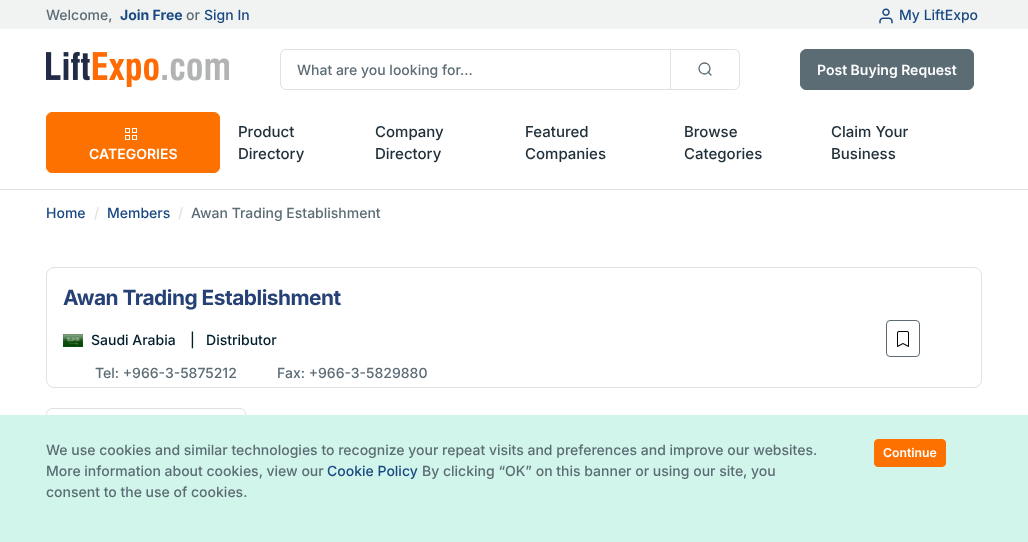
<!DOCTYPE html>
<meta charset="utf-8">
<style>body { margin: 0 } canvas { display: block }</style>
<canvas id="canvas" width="1028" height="542"></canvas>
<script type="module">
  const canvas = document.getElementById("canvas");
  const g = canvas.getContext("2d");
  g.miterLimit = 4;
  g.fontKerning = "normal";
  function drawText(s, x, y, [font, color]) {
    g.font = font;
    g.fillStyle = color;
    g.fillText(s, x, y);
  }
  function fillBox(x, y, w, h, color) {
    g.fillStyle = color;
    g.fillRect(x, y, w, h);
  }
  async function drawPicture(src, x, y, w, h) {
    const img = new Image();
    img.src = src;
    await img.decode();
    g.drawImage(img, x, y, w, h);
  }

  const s1 = ["500 14px Inter", "#5C6C75"];
  const s2 = ["bold 14px Inter", "#194883"];
  const s3 = ["500 14px Inter", "#194883"];
  const s4 = ["600 14px Inter", "#FFFFFF"];
  const s5 = ["500 15px Inter", "#21313C"];
  const s6 = ["500 14px Inter", "#DFE2E1"];
  const s7 = ["bold 20.9px Inter", "#264176"];
  const s8 = ["500 14px Inter", "#001E2B"];
  const s9 = ["600 12.25px Inter", "#FFFFFF"];

  fillBox(0, 0, 1028, 542, "#FFFFFF");
  fillBox(0, 189, 1028, 1, "#DFE2E1");
  fillBox(0, 0, 1028, 29, "#F0F3F2");
  drawText("Welcome,", 46, 20, s1);
  drawText("Join Free", 120, 20, s2);
  drawText("or", 186, 20, s1);
  drawText("Sign In", 204, 20, s3);
  await drawPicture("pic1.png", 879, 8, 14, 16);
  drawText("My LiftExpo", 899, 20, s3);
  await drawPicture("pic2.png", 46, 52, 183, 35);
  g.beginPath();
  g.roundRect(670.5, 49.5, 69, 40, [0, 5.5, 5.5, 0]);
  g.strokeStyle = "#DFE2E1";
  g.stroke();
  g.beginPath();
  g.roundRect(280.5, 49.5, 390, 40, [5.5, 0, 0, 5.5]);
  g.stroke();
  drawText("What are you looking for...", 297, 75, s1);
  g.beginPath();
  g.arc(704.5, 68.5, 5.5, 0, Math.PI * 2);
  g.strokeStyle = "#5C6C75";
  g.lineWidth = 1.3;
  g.stroke();
  g.beginPath();
  g.moveTo(711, 75);
  g.lineTo(708, 72);
  g.lineCap = "round";
  g.lineJoin = "round";
  g.stroke();
  g.beginPath();
  g.roundRect(800.5, 49.5, 173, 40, 5.5);
  g.fill();
  g.lineWidth = 1;
  g.lineJoin = "miter";
  g.stroke();
  drawText("Post Buying Request", 817, 75, s4);
  g.fillStyle = "#FD7100";
  g.beginPath();
  g.roundRect(46.5, 112.5, 173, 60, 5.5);
  g.fill();
  g.strokeStyle = "#FD7100";
  g.stroke();
  await drawPicture("pic3.png", 125, 128, 12, 12);
  drawText("CATEGORIES", 89, 159, s4);
  drawText("Product", 238, 137, s5);
  drawText("Directory", 238, 159, s5);
  drawText("Company", 375, 137, s5);
  drawText("Directory", 375, 159, s5);
  drawText("Featured", 525, 137, s5);
  drawText("Companies", 525, 159, s5);
  drawText("Browse", 684, 137, s5);
  drawText("Categories", 684, 159, s5);
  drawText("Claim Your", 831, 137, s5);
  drawText("Business", 831, 159, s5);
  drawText("Home", 46, 218, s3);
  drawText("/", 94, 218, s6);
  drawText("Members", 107, 218, s3);
  drawText("/", 178, 218, s6);
  drawText("Awan Trading Establishment", 191, 218, s1);
  g.beginPath();
  g.roundRect(46.5, 267.5, 935, 120, 7.5);
  g.strokeStyle = "#DFE2E1";
  g.stroke();
  g.letterSpacing = "-0.5px";
  drawText("Awan Trading Establishment", 63, 305, s7);
  await drawPicture("pic4.png", 63, 334, 20, 13);
  g.letterSpacing = "0px";
  drawText("Saudi Arabia", 91, 345, s8);
  drawText("|   Distributor", 190, 345, s8);
  drawText("Tel: +966-3-5875212", 95, 378, s1);
  drawText("Fax: +966-3-5829880", 277, 378, s1);
  g.beginPath();
  g.roundRect(886.5, 320.5, 33, 36, 3.5);
  g.strokeStyle = "#5C6C75";
  g.stroke();
  await drawPicture("pic5.png", 897, 331, 12, 16);
  g.beginPath();
  g.roundRect(46.5, 408.5, 199, 79, 5.5);
  g.strokeStyle = "#DFE2E1";
  g.stroke();
  fillBox(0, 415, 1028, 127, "#D1F5EA");
  drawText("We use cookies and similar technologies to recognize your repeat visits and preferences and improve our websites.", 46, 455, s1);
  drawText("More information about cookies, view our", 46, 476, s1);
  drawText("Cookie Policy", 327, 476, s3);
  drawText("By clicking “OK” on this banner or using our site, you", 422, 476, s1);
  drawText("consent to the use of cookies.", 46, 497, s1);
  g.fillStyle = "#FD7100";
  g.beginPath();
  g.roundRect(874.5, 439.5, 71, 27, 3.5);
  g.fill();
  g.strokeStyle = "#FD7100";
  g.stroke();
  drawText("Continue", 883, 457, s9);
</script>
